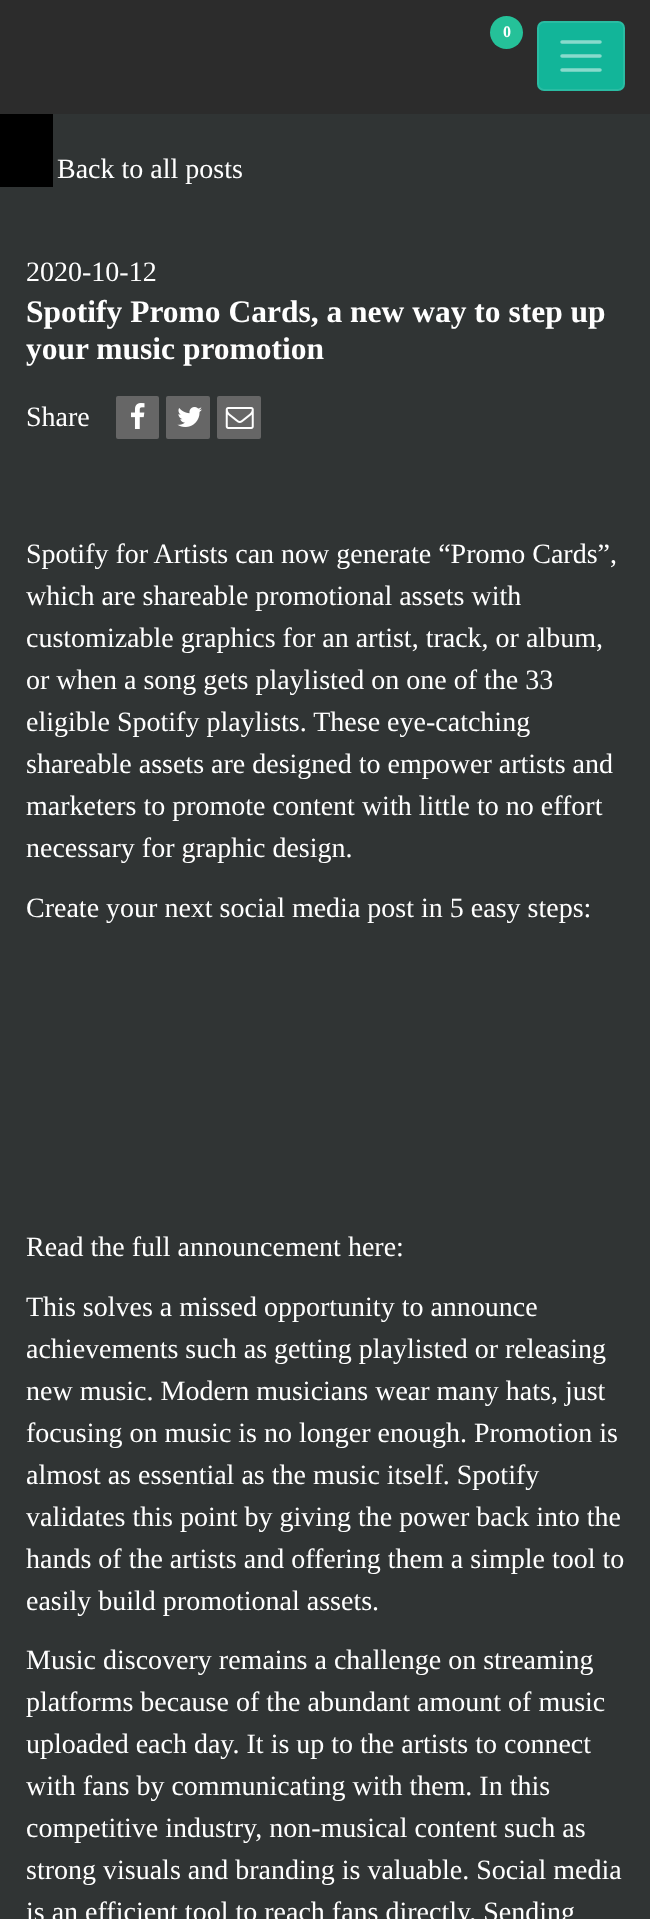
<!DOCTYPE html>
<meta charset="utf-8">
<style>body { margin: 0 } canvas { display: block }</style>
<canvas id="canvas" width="650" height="1919"></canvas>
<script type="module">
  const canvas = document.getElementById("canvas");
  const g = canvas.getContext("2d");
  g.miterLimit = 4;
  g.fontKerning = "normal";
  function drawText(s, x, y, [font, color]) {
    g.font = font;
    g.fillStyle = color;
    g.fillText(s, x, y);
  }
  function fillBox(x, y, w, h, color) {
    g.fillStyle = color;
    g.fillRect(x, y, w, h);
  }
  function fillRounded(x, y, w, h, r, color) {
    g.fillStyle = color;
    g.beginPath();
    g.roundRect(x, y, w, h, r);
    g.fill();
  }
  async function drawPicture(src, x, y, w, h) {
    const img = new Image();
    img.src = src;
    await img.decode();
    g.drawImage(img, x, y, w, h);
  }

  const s1 = ["bold 16px Liberation Serif", "#FFFFFF"];
  const s2 = ["28px Liberation Serif", "#FFFFFF"];
  const s3 = ["bold 31.5px Liberation Serif", "#FFFFFF"];

  fillBox(0, 0, 650, 1919, "#303434");
  fillBox(0, 0, 650, 114, "#2C2C2C");
  g.fillStyle = "#25C199";
  g.beginPath();
  g.arc(506.5, 32.5, 16.5, 0, Math.PI * 2);
  g.fill();
  drawText("0", 503, 37, s1);
  fillRounded(537, 21, 88, 70, 7, "#12B599");
  g.beginPath();
  g.roundRect(538, 22, 86, 68, 6);
  g.strokeStyle = "rgba(255, 255, 255, 0.1)";
  g.lineWidth = 2;
  g.stroke();
  g.beginPath();
  g.moveTo(562, 42);
  g.lineTo(600, 42);
  g.moveTo(562, 56);
  g.lineTo(600, 56);
  g.moveTo(562, 70);
  g.lineTo(600, 70);
  g.strokeStyle = "#89DACC";
  g.lineWidth = 3.5;
  g.lineCap = "round";
  g.stroke();
  fillBox(0, 114, 53, 73, "#000000");
  drawText("Back to all posts", 57, 178, s2);
  drawText("2020-10-12", 26, 281, s2);
  drawText("Spotify Promo Cards, a new way to step up", 26, 322, s3);
  drawText("your music promotion", 26, 359, s3);
  drawText("Share", 26, 426, s2);
  fillRounded(116, 396, 43, 43, 2, "#666666");
  await drawPicture("pic1.png", 131, 403, 14, 26);
  fillRounded(166, 396, 44, 43, 2, "#666666");
  await drawPicture("pic2.png", 177, 407, 25, 20);
  fillRounded(217, 396, 44, 43, 2, "#666666");
  await drawPicture("pic3.png", 225, 407, 29, 22);
  drawText("Spotify for Artists can now generate “Promo Cards”,", 26, 563, s2);
  drawText("which are shareable promotional assets with", 26, 605, s2);
  drawText("customizable graphics for an artist, track, or album,", 26, 647, s2);
  drawText("or when a song gets playlisted on one of the 33", 26, 689, s2);
  drawText("eligible Spotify playlists. These eye-catching", 26, 731, s2);
  drawText("shareable assets are designed to empower artists and", 26, 773, s2);
  drawText("marketers to promote content with little to no effort", 26, 815, s2);
  drawText("necessary for graphic design.", 26, 857, s2);
  drawText("Create your next social media post in 5 easy steps:", 26, 917, s2);
  drawText("Read the full announcement here:", 26, 1256, s2);
  drawText("This solves a missed opportunity to announce", 26, 1316, s2);
  drawText("achievements such as getting playlisted or releasing", 26, 1358, s2);
  drawText("new music. Modern musicians wear many hats, just", 26, 1400, s2);
  drawText("focusing on music is no longer enough. Promotion is", 26, 1442, s2);
  drawText("almost as essential as the music itself. Spotify", 26, 1484, s2);
  drawText("validates this point by giving the power back into the", 26, 1526, s2);
  drawText("hands of the artists and offering them a simple tool to", 26, 1568, s2);
  drawText("easily build promotional assets.", 26, 1610, s2);
  drawText("Music discovery remains a challenge on streaming", 26, 1669, s2);
  drawText("platforms because of the abundant amount of music", 26, 1711, s2);
  drawText("uploaded each day. It is up to the artists to connect", 26, 1753, s2);
  drawText("with fans by communicating with them. In this", 26, 1795, s2);
  drawText("competitive industry, non-musical content such as", 26, 1837, s2);
  drawText("strong visuals and branding is valuable. Social media", 26, 1879, s2);
  drawText("is an efficient tool to reach fans directly. Sending", 26, 1921, s2);
</script>
